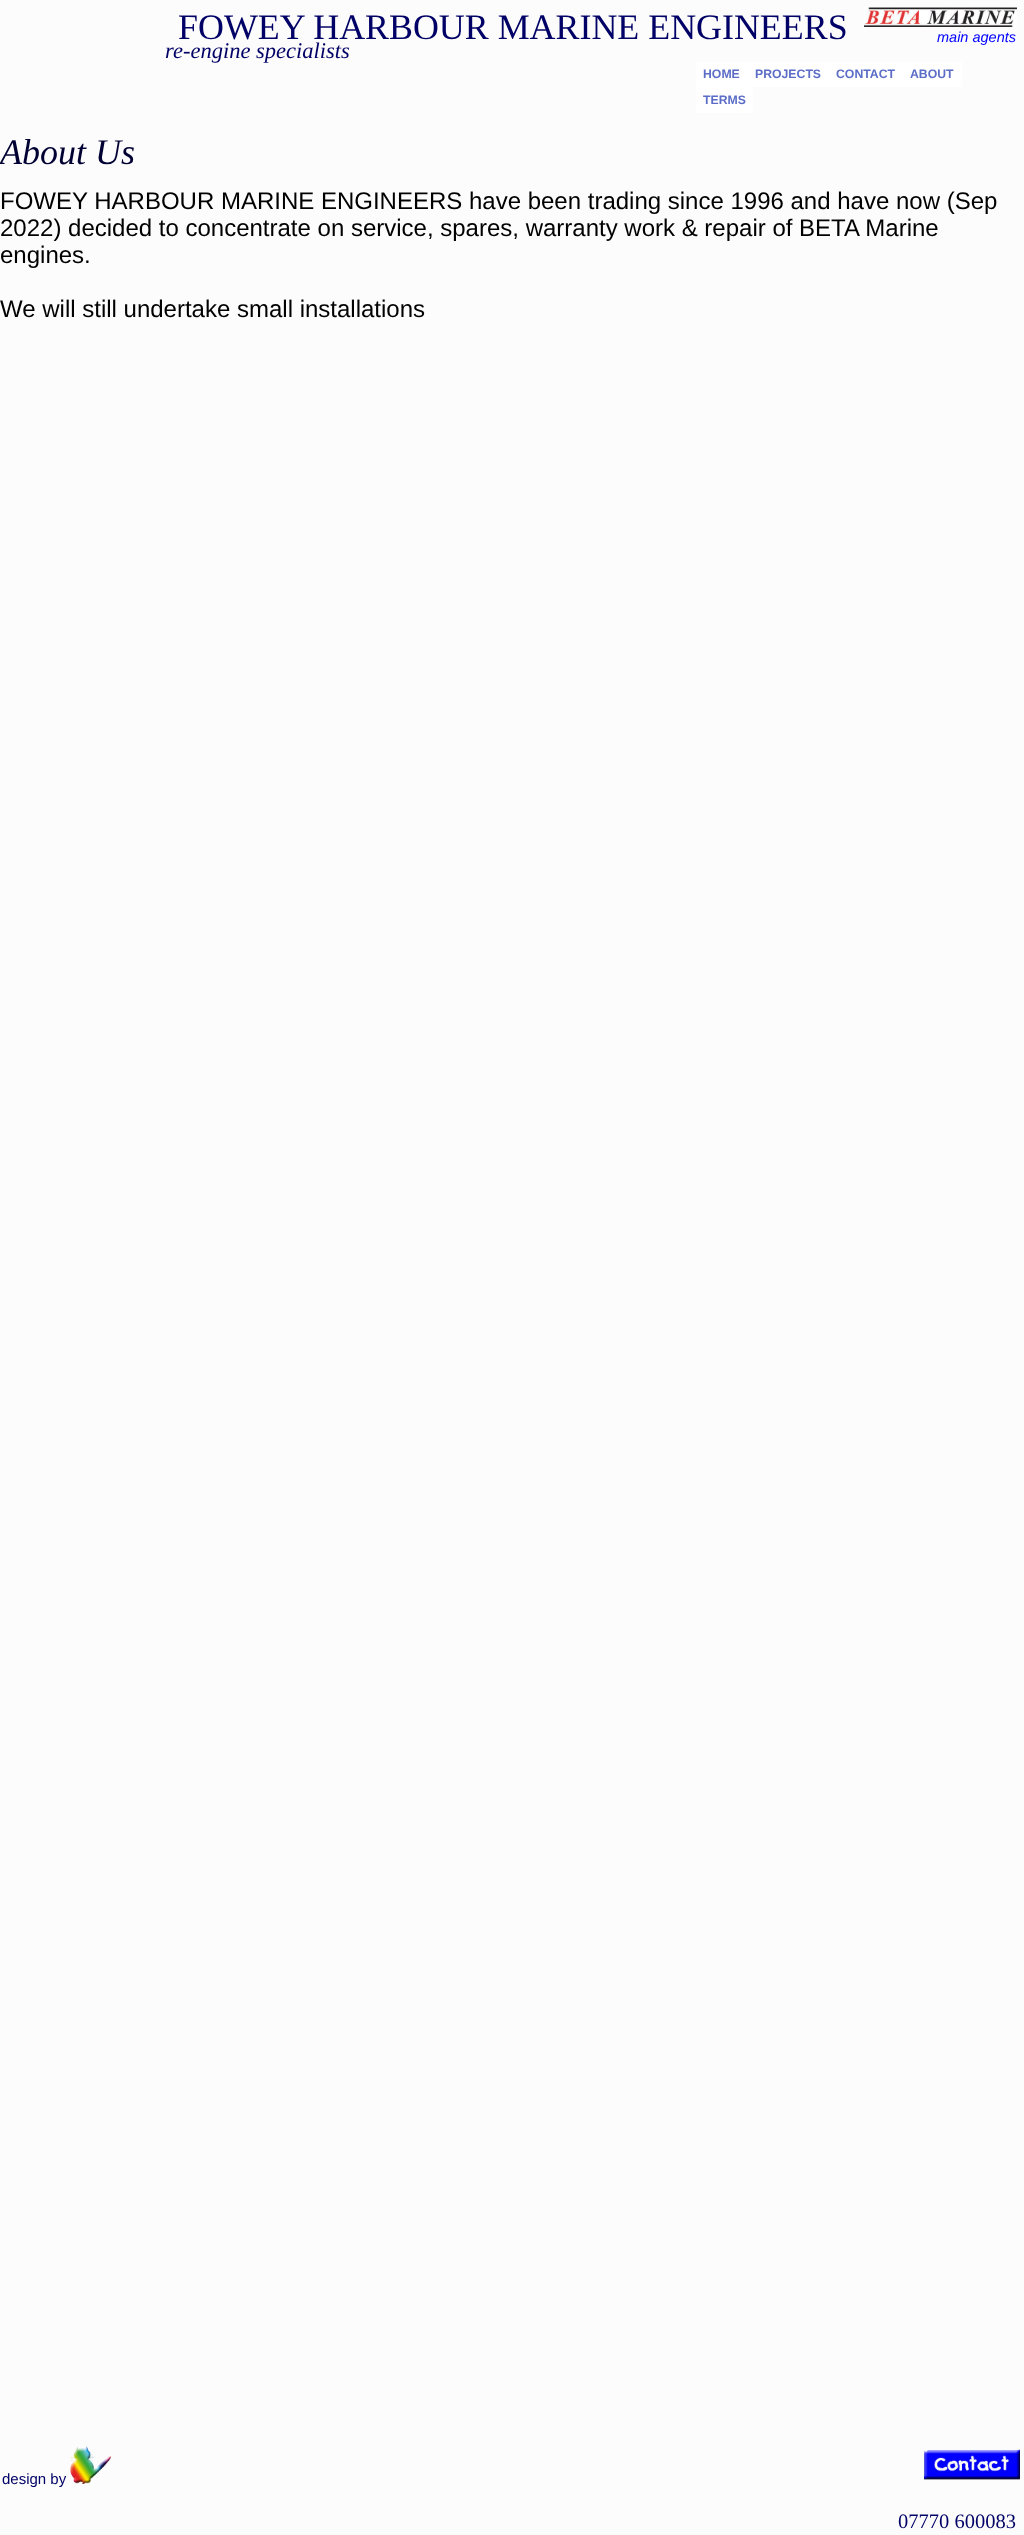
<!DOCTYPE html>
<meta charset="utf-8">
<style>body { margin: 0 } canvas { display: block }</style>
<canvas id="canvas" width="1024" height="2535"></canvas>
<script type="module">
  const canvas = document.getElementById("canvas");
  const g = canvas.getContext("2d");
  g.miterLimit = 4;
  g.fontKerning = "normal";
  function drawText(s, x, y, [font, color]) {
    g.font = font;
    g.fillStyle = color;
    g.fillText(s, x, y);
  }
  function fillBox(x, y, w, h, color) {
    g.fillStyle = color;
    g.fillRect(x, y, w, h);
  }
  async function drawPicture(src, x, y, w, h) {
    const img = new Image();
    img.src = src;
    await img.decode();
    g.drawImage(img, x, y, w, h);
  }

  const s1 = ["35.9px Liberation Serif", "#000066"];
  const s2 = ["italic 14.5px Liberation Sans", "#0000FF"];
  const s3 = ["italic 22.5px Liberation Serif", "#000066"];
  const s4 = ["bold 12.25px Liberation Sans", "#5B6DC7"];
  const s5 = ["italic 36px Liberation Serif", "#000033"];
  const s6 = ["24px Liberation Sans", "#000000"];
  const s7 = ["15px Liberation Sans", "#000066"];
  const s8 = ["20.5px Liberation Serif", "#000066"];

  fillBox(0, 0, 1024, 2535, "#FCFCFC");
  drawText("FOWEY HARBOUR MARINE ENGINEERS", 178, 39, s1);
  await drawPicture("pic1.png", 864, 7, 153, 20);
  drawText("main agents", 937, 42, s2);
  drawText("re-engine specialists", 165, 58, s3);
  fillBox(696, 62, 266, 25, "#FFFFFF");
  drawText("HOME", 703, 78, s4);
  drawText("PROJECTS", 755, 78, s4);
  drawText("CONTACT", 836, 78, s4);
  drawText("ABOUT", 910, 78, s4);
  fillBox(696, 87, 57, 26, "#FFFFFF");
  drawText("TERMS", 703, 104, s4);
  drawText("About Us", 0, 164, s5);
  drawText("FOWEY HARBOUR MARINE ENGINEERS have been trading since 1996 and have now (Sep", 0, 209, s6);
  drawText("2022) decided to concentrate on service, spares, warranty work & repair of BETA Marine", 0, 236, s6);
  drawText("engines.", 0, 263, s6);
  drawText("We will still undertake small installations", 0, 317, s6);
  drawText("design by", 2, 2484, s7);
  await drawPicture("pic2.png", 70, 2446, 41, 38);
  await drawPicture("pic3.png", 924, 2449, 96, 31);
  drawText("07770 600083", 898, 2528, s8);
</script>
